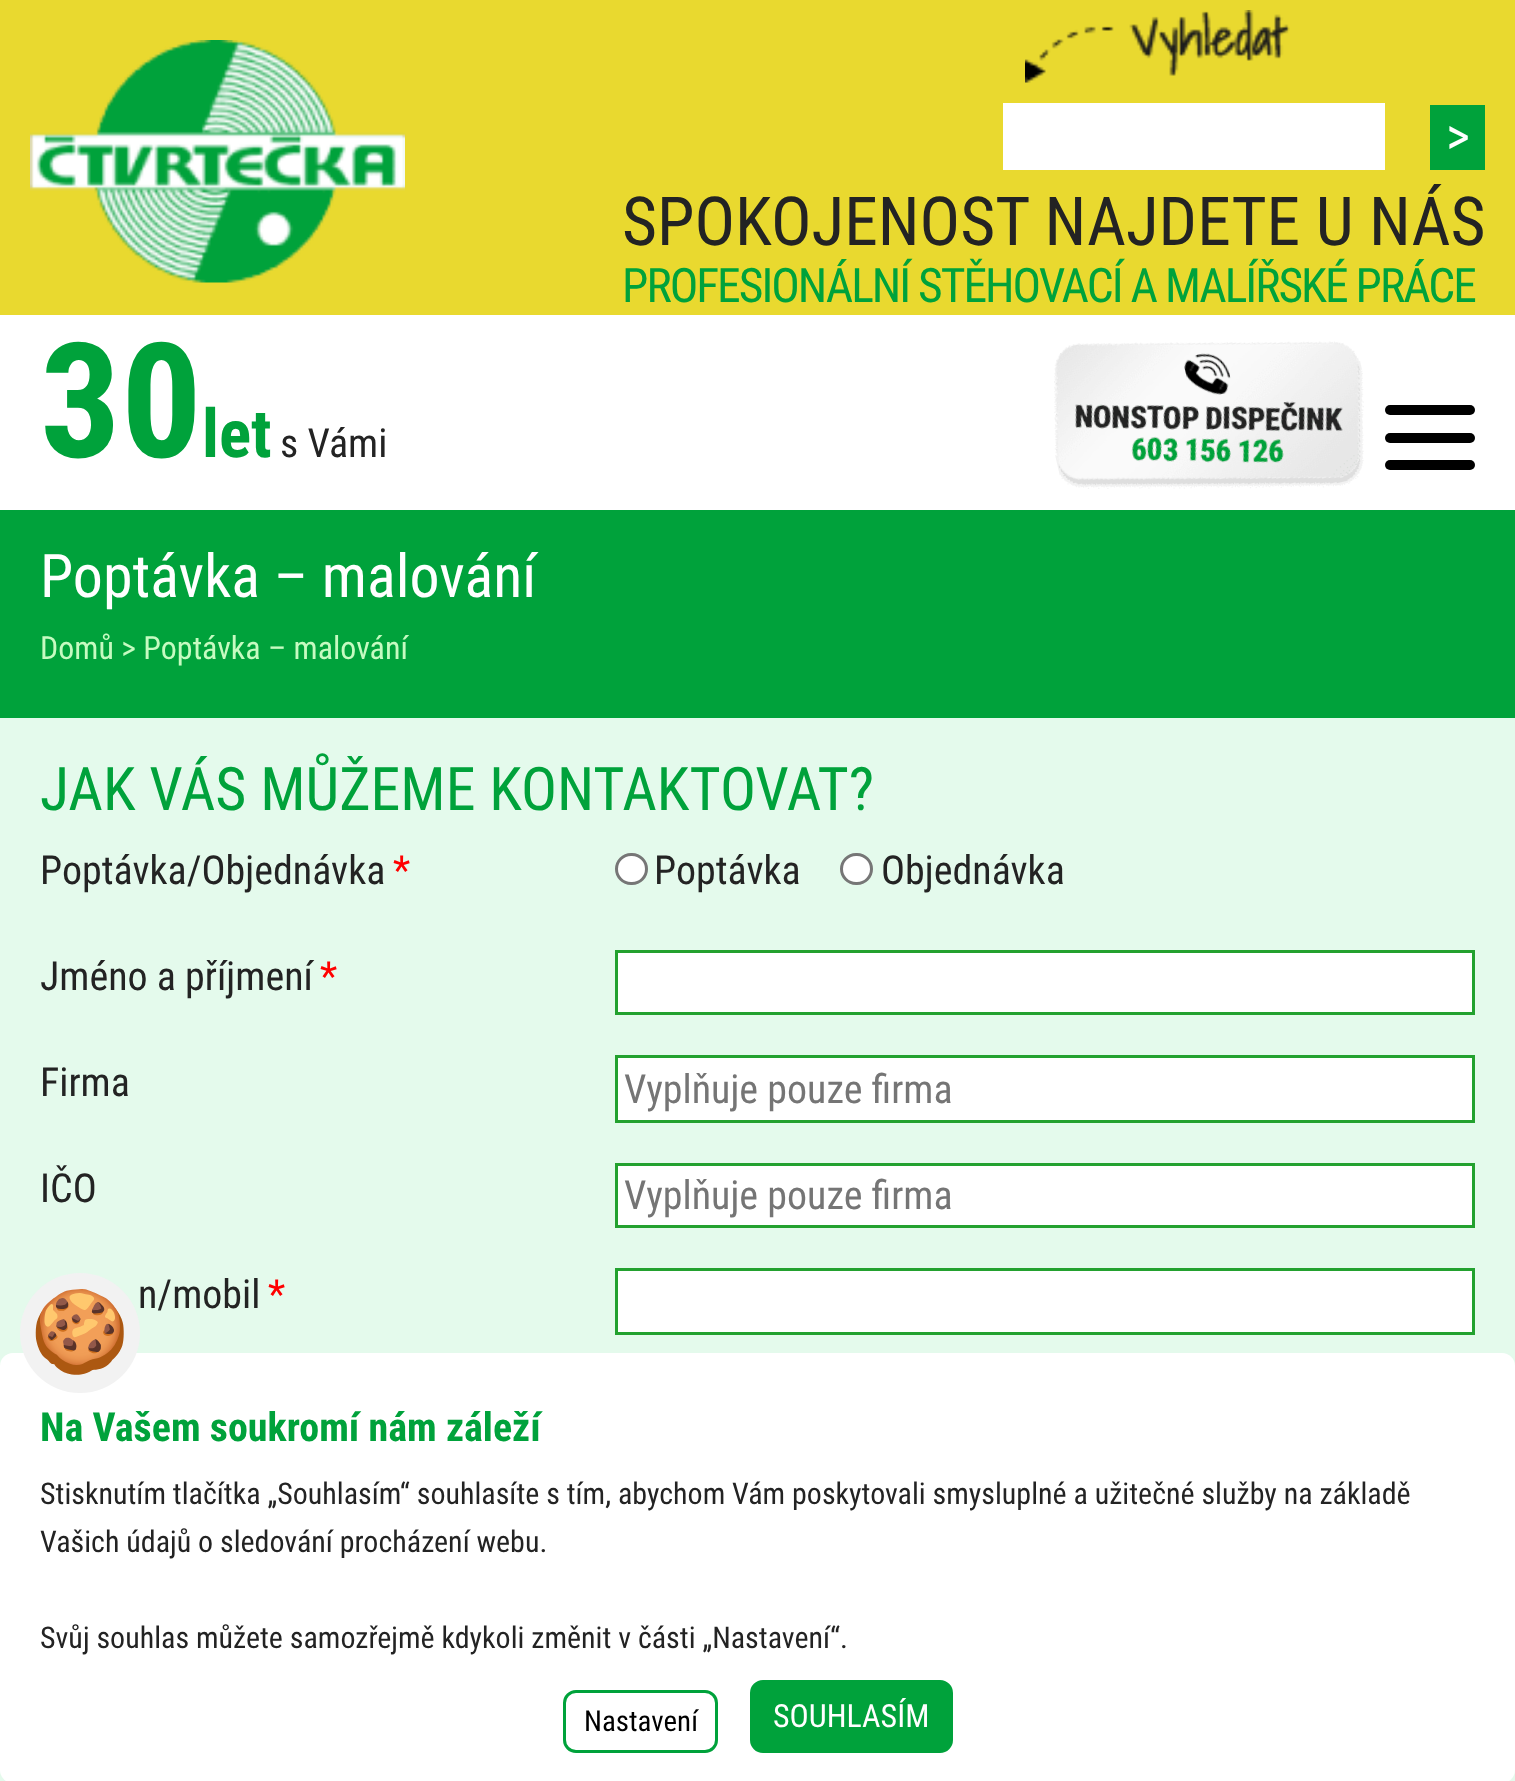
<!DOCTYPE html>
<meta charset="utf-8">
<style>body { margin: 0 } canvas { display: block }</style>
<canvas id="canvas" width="1515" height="1781"></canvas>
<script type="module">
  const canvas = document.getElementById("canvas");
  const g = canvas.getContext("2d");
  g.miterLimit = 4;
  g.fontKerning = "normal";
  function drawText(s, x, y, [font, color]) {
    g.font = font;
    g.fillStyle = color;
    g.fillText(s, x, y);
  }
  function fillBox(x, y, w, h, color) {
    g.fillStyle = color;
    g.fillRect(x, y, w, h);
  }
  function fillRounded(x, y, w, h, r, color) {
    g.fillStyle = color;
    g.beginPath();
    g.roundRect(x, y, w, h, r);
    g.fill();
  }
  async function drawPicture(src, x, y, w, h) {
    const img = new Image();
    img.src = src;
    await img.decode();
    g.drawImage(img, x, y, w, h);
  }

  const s1 = ["52px Roboto Condensed", "#FFFFFF"];
  const s2 = ["67.6px Roboto Condensed", "#232323"];
  const s3 = ["47.6px Roboto Condensed", "#00A23B"];
  const s4 = ["bold 160px Roboto Condensed", "#00A23B"];
  const s5 = ["bold 67px Roboto Condensed", "#00A23B"];
  const s6 = ["40px Roboto Condensed", "#232323"];
  const s7 = ["60px Roboto Condensed", "#FFFFFF"];
  const s8 = ["32px Roboto Condensed", "#C6FBC1"];
  const s9 = ["60px Roboto Condensed", "#00A23B"];
  const s10 = ["40px Roboto Condensed", "#FF0000"];
  const s11 = ["40px Roboto Condensed", "#757575"];
  const s12 = ["80px Noto Color Emoji", "#232323"];
  const s13 = ["bold 40px Roboto Condensed", "#00A23B"];
  const s14 = ["30px Roboto Condensed", "#232323"];
  const s15 = ["29px Roboto Condensed", "#000000"];
  const s16 = ["32px Roboto Condensed", "#FFFFFF"];

  fillBox(0, 0, 1515, 1781, "#E9D92F");
  await drawPicture("pic1.png", 30, 40, 375, 243);
  await drawPicture("pic2.png", 1025, 10, 265, 73);
  fillBox(1003, 103, 382, 67, "#FFFFFF");
  fillBox(1430, 105, 55, 65, "#00A23B");
  drawText(">", 1446, 154, s1);
  drawText("SPOKOJENOST NAJDETE U NÁS", 622, 245, s2);
  g.letterSpacing = "-2px";
  drawText("PROFESIONÁLNÍ STĚHOVACÍ A MALÍŘSKÉ PRÁCE", 622, 302, s3);
  fillBox(0, 315, 1515, 195, "#FFFFFF");
  g.letterSpacing = "0px";
  drawText("30", 40, 457, s4);
  drawText("let", 202, 457, s5);
  drawText("s Vámi", 280, 457, s6);
  await drawPicture("pic3.png", 1054, 341, 310, 148);
  fillRounded(1385, 405, 90, 10, 5, "#000000");
  fillRounded(1385, 433, 90, 10, 5, "#000000");
  fillRounded(1385, 460, 90, 10, 5, "#000000");
  fillBox(0, 510, 1515, 208, "#00A23B");
  drawText("Poptávka – malování", 40, 597, s7);
  drawText("Domů > Poptávka – malování", 40, 659, s8);
  fillBox(0, 718, 1515, 1063, "#E4FAEC");
  drawText("JAK VÁS MŮŽEME KONTAKTOVAT?", 40, 810, s9);
  drawText("Poptávka/Objednávka", 40, 884, s6);
  drawText("*", 393, 884, s10);
  g.fillStyle = "#FFFFFF";
  g.beginPath();
  g.roundRect(616.5, 854.5, 30, 29, 14.5);
  g.fill();
  g.strokeStyle = "#767676";
  g.lineWidth = 3;
  g.stroke();
  drawText("Poptávka", 654, 884, s6);
  g.fillStyle = "#FFFFFF";
  g.beginPath();
  g.roundRect(841.5, 854.5, 30, 29, 14.5);
  g.fill();
  g.stroke();
  drawText("Objednávka", 881, 884, s6);
  drawText("Jméno a příjmení", 40, 990, s6);
  drawText("*", 320, 990, s10);
  g.fillStyle = "#FFFFFF";
  g.beginPath();
  g.rect(616.5, 951.5, 857, 62);
  g.fill();
  g.strokeStyle = "#23A12F";
  g.stroke();
  drawText("Firma", 40, 1096, s6);
  g.fillStyle = "#FFFFFF";
  g.beginPath();
  g.rect(616.5, 1056.5, 857, 65);
  g.fill();
  g.stroke();
  drawText("Vyplňuje pouze firma", 624, 1103, s11);
  drawText("IČO", 40, 1202, s6);
  g.fillStyle = "#FFFFFF";
  g.beginPath();
  g.rect(616.5, 1164.5, 857, 62);
  g.fill();
  g.stroke();
  drawText("Vyplňuje pouze firma", 624, 1209, s11);
  drawText("n/mobil", 138, 1308, s6);
  drawText("*", 268, 1308, s10);
  g.fillStyle = "#FFFFFF";
  g.beginPath();
  g.rect(616.5, 1269.5, 857, 64);
  g.fill();
  g.stroke();
  fillRounded(0, 1353, 1515, 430, 13, "#FFFFFF");
  g.fillStyle = "#F2F2F2";
  g.beginPath();
  g.arc(80, 1333, 60, 0, Math.PI * 2);
  g.fill();
  drawText("🍪", 30, 1359, s12);
  drawText("Na Vašem soukromí nám záleží", 40, 1441, s13);
  drawText("Stisknutím tlačítka „Souhlasím“ souhlasíte s tím, abychom Vám poskytovali smysluplné a užitečné služby na základě", 40, 1504, s14);
  drawText("Vašich údajů o sledování procházení webu.", 40, 1552, s14);
  drawText("Svůj souhlas můžete samozřejmě kdykoli změnit v části „Nastavení“.", 40, 1648, s14);
  g.beginPath();
  g.roundRect(564.5, 1691.5, 152, 60, 11.5);
  g.strokeStyle = "#00A23B";
  g.stroke();
  drawText("Nastavení", 584, 1731, s15);
  g.fillStyle = "#00A23B";
  g.beginPath();
  g.roundRect(751.5, 1681.5, 200, 70, 11.5);
  g.fill();
  g.stroke();
  drawText("SOUHLASÍM", 773, 1727, s16);
</script>
